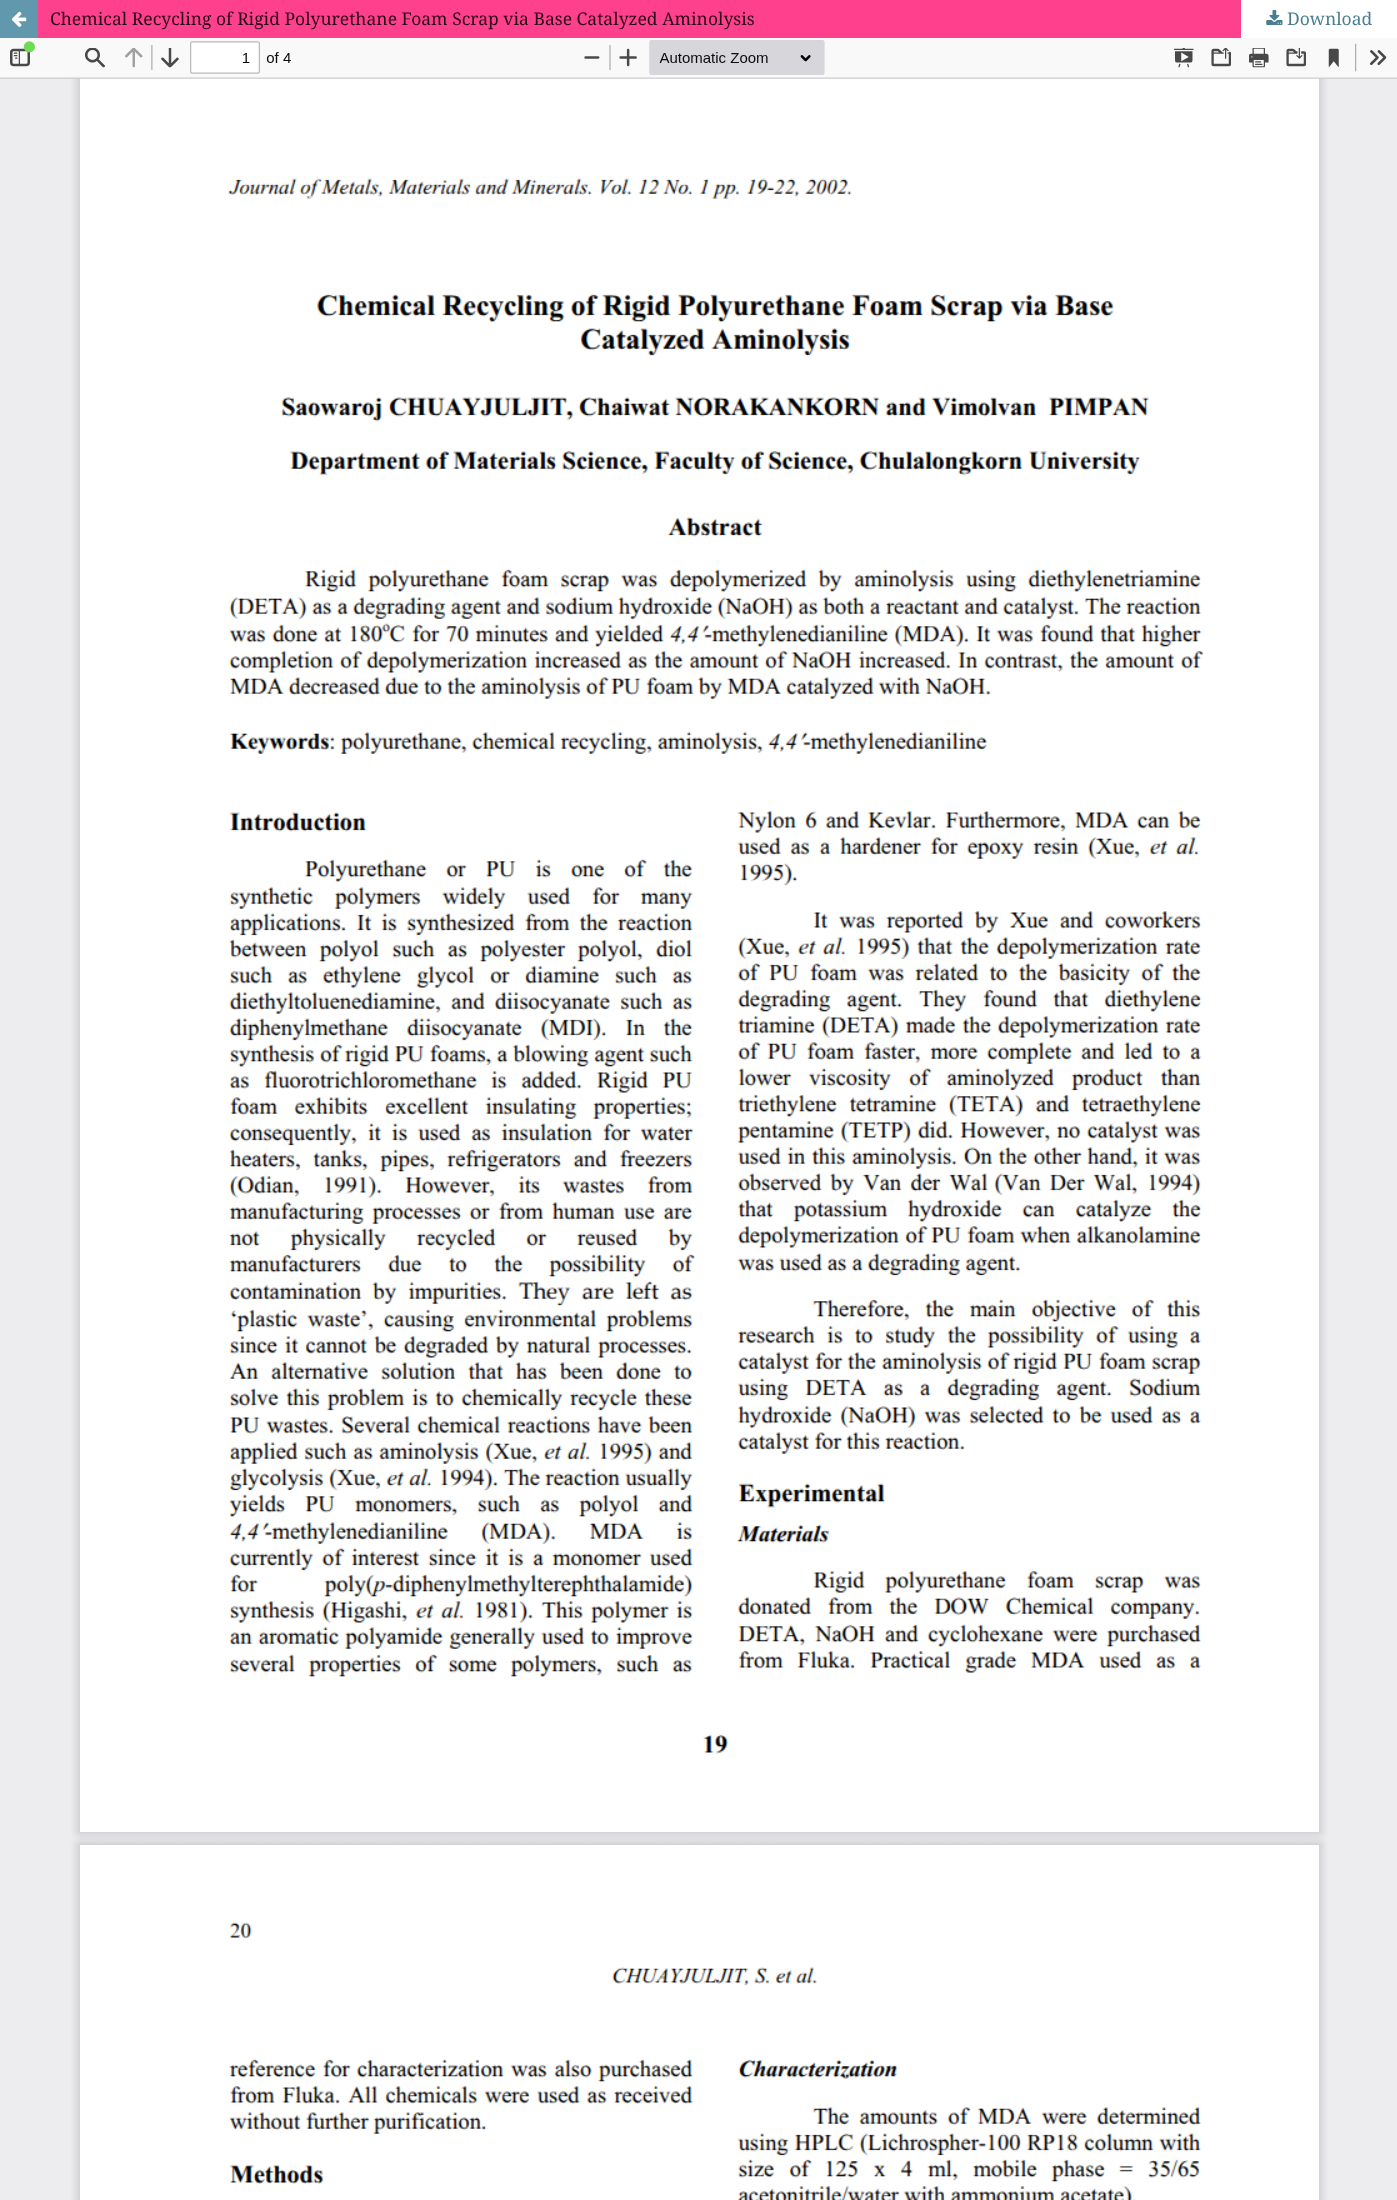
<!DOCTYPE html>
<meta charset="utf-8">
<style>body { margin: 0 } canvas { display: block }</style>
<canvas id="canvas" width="1397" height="2200"></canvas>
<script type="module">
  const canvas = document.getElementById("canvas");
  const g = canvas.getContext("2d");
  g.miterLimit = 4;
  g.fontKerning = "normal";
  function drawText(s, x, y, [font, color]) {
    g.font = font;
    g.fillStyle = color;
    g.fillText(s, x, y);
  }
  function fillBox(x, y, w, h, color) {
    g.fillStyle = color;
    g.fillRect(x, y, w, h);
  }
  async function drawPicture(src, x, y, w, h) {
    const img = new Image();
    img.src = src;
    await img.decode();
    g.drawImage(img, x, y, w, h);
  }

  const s1 = ["17.5px Noto Serif", "#290A17"];
  const s2 = ["17.5px Noto Serif", "#4B7D92"];

  fillBox(0, 0, 1397, 2200, "#FFFFFF");
  fillBox(38, 0, 1203, 38, "#FF408D");
  fillBox(0, 0, 38, 38, "#6298AE");
  await drawPicture("pic1.png", 11, 11, 16, 16);
  drawText("Chemical Recycling of Rigid Polyurethane Foam Scrap via Base Catalyzed Aminolysis", 50, 25, s1);
  await drawPicture("pic2.png", 1266, 10, 17, 15);
  drawText("Download", 1287, 25, s2);
  await drawPicture("pic3.png", 0, 38, 1397, 2162);
</script>
